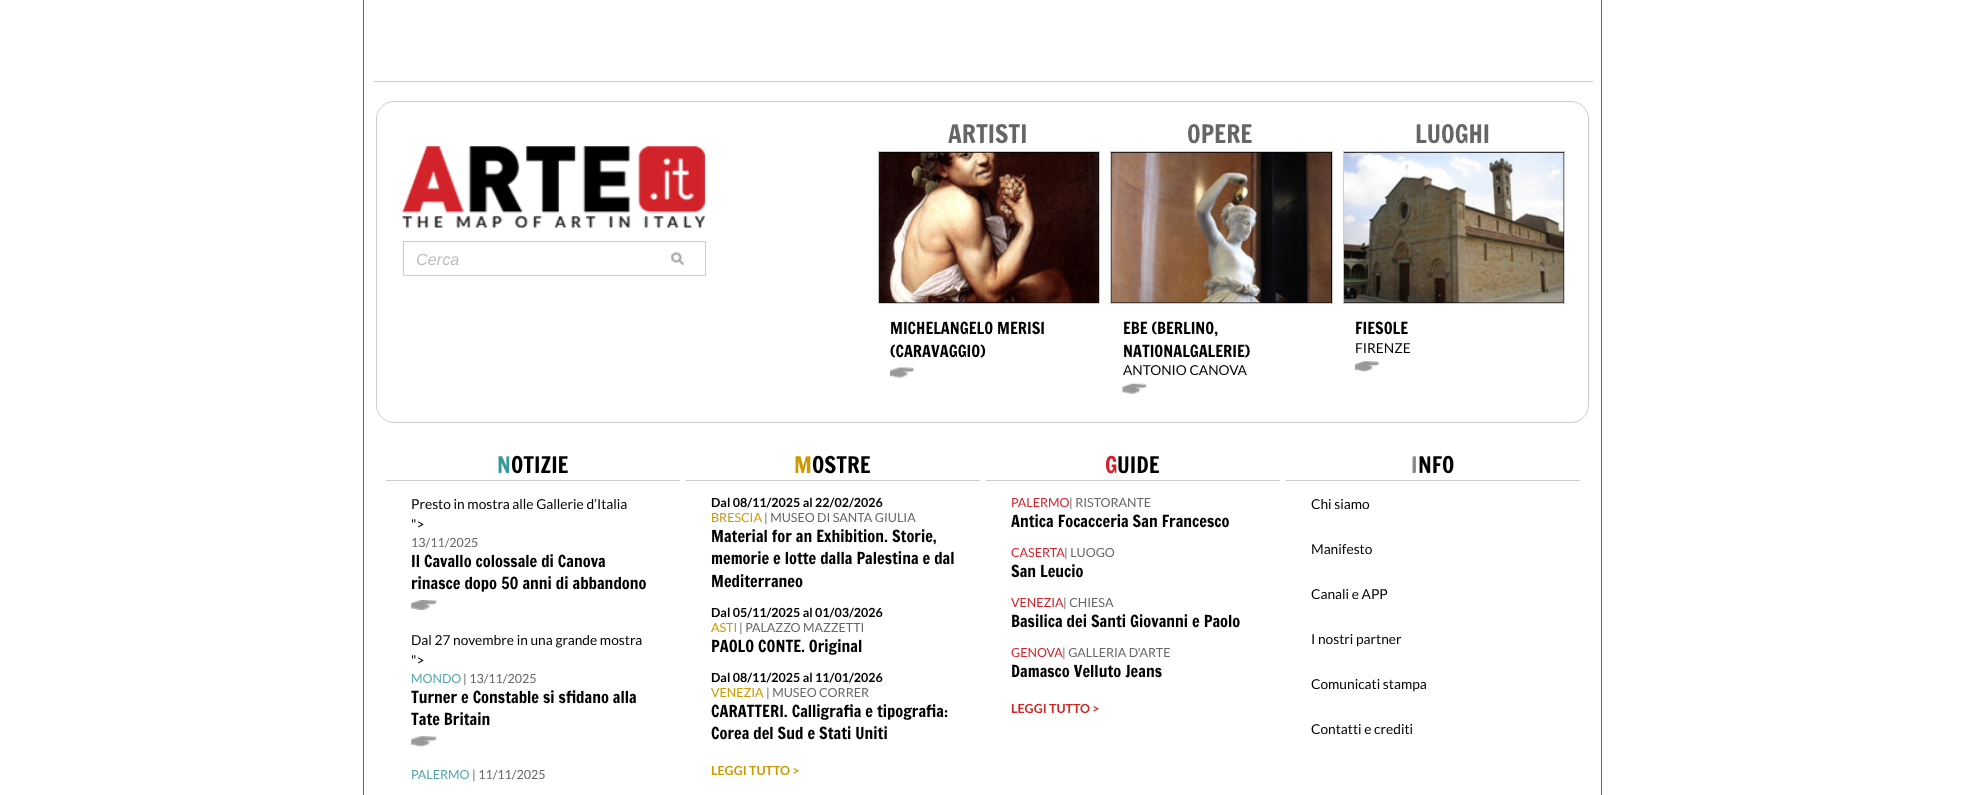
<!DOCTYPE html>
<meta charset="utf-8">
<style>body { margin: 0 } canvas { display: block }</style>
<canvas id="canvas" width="1964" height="795"></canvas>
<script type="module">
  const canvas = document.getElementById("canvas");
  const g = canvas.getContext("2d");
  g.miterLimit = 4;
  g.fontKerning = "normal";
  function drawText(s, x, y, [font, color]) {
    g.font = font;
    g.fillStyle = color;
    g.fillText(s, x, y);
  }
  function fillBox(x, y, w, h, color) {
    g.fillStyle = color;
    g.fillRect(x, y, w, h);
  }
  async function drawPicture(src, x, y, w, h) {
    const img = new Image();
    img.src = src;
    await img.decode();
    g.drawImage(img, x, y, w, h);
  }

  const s1 = ["italic 16.25px Liberation Sans", "#BEBDC1"];
  const s2 = ["25px Francois One", "#666666"];
  const s3 = ["16.25px Francois One", "#000000"];
  const s4 = ["13.75px Lato", "#000000"];
  const s5 = ["22.5px Francois One", "#339999"];
  const s6 = ["22.5px Francois One", "#000000"];
  const s7 = ["12.5px Lato", "#666666"];
  const s8 = ["12.5px Lato", "#51A6A7"];
  const s9 = ["22.5px Francois One", "#CC9900"];
  const s10 = ["bold 12.5px Lato", "#000000"];
  const s11 = ["12.5px Lato", "#CC9900"];
  const s12 = ["bold 12.5px Lato", "#CC9900"];
  const s13 = ["22.5px Francois One", "#D2232A"];
  const s14 = ["12.5px Lato", "#D2232A"];
  const s15 = ["bold 12.5px Lato", "#D12522"];
  const s16 = ["22.5px Francois One", "#888888"];

  fillBox(0, 0, 1964, 795, "#FFFFFF");
  fillBox(1601, 0, 1, 795, "#666666");
  fillBox(363, 0, 1, 795, "#666666");
  fillBox(374, 81, 1219, 1, "#CCCCCC");
  g.beginPath();
  g.roundRect(376.5, 101.5, 1212, 321, 17.5);
  g.strokeStyle = "#CCCCCC";
  g.stroke();
  await drawPicture("pic1.png", 402, 146, 303, 82);
  g.strokeRect(403.5, 241.5, 302, 34);
  drawText("Cerca", 416, 265, s1);
  await drawPicture("pic2.png", 671, 252, 13, 14);
  drawText("ARTISTI", 948, 143, s2);
  g.fillStyle = "#000000";
  g.beginPath();
  g.rect(878.5, 151.5, 221, 152);
  g.fill();
  g.stroke();
  await drawPicture("pic3.png", 878, 152, 221, 151);
  drawText("MICHELANGELO MERISI", 890, 334, s3);
  drawText("(CARAVAGGIO)", 890, 357, s3);
  await drawPicture("pic4.png", 890, 367, 24, 11);
  drawText("OPERE", 1187, 143, s2);
  g.fillStyle = "#000000";
  g.beginPath();
  g.rect(1110.5, 151.5, 222, 152);
  g.fill();
  g.stroke();
  await drawPicture("pic5.png", 1111, 152, 221, 151);
  drawText("EBE (BERLINO,", 1123, 334, s3);
  drawText("NATIONALGALERIE)", 1123, 357, s3);
  drawText("ANTONIO CANOVA", 1123, 375, s4);
  await drawPicture("pic6.png", 1122, 383, 25, 11);
  drawText("LUOGHI", 1415, 143, s2);
  g.fillStyle = "#000000";
  g.beginPath();
  g.rect(1343.5, 151.5, 221, 152);
  g.fill();
  g.stroke();
  await drawPicture("pic7.png", 1343, 152, 221, 151);
  drawText("FIESOLE", 1355, 334, s3);
  drawText("FIRENZE", 1355, 353, s4);
  await drawPicture("pic8.png", 1355, 361, 24, 11);
  fillBox(386, 480, 294, 1, "#CCCCCC");
  drawText("N", 497, 473, s5);
  drawText("OTIZIE", 511, 473, s6);
  drawText("Presto in mostra alle Gallerie d’Italia", 411, 509, s4);
  drawText("\">", 411, 529, s4);
  drawText("13/11/2025", 411, 547, s7);
  drawText("Il Cavallo colossale di Canova", 411, 567, s3);
  drawText("rinasce dopo 50 anni di abbandono", 411, 589, s3);
  await drawPicture("pic9.png", 411, 600, 26, 10);
  drawText("Dal 27 novembre in una grande mostra", 411, 645, s4);
  drawText("\">", 411, 665, s4);
  drawText("MONDO", 411, 683, s8);
  drawText("| 13/11/2025", 463, 683, s7);
  drawText("Turner e Constable si sfidano alla", 411, 703, s3);
  drawText("Tate Britain", 411, 725, s3);
  await drawPicture("pic10.png", 411, 736, 26, 11);
  drawText("PALERMO", 411, 779, s8);
  drawText("| 11/11/2025", 472, 779, s7);
  fillBox(686, 480, 294, 1, "#CCCCCC");
  drawText("M", 794, 473, s9);
  drawText("OSTRE", 812, 473, s6);
  drawText("Dal 08/11/2025 al 22/02/2026", 711, 507, s10);
  drawText("BRESCIA", 711, 522, s11);
  drawText("| MUSEO DI SANTA GIULIA", 764, 522, s7);
  drawText("Material for an Exhibition. Storie,", 711, 542, s3);
  drawText("memorie e lotte dalla Palestina e dal", 711, 564, s3);
  drawText("Mediterraneo", 711, 587, s3);
  drawText("Dal 05/11/2025 al 01/03/2026", 711, 617, s10);
  drawText("ASTI", 711, 632, s11);
  drawText("| PALAZZO MAZZETTI", 739, 632, s7);
  drawText("PAOLO CONTE. Original", 711, 652, s3);
  drawText("Dal 08/11/2025 al 11/01/2026", 711, 682, s10);
  drawText("VENEZIA", 711, 697, s11);
  drawText("| MUSEO CORRER", 766, 697, s7);
  drawText("CARATTERI. Calligrafia e tipografia:", 711, 717, s3);
  drawText("Corea del Sud e Stati Uniti", 711, 739, s3);
  drawText("LEGGI TUTTO >", 711, 775, s12);
  fillBox(986, 480, 294, 1, "#CCCCCC");
  drawText("G", 1105, 473, s13);
  drawText("UIDE", 1117, 473, s6);
  drawText("PALERMO", 1011, 507, s14);
  drawText("| RISTORANTE", 1069, 507, s7);
  drawText("Antica Focacceria San Francesco", 1011, 527, s3);
  drawText("CASERTA", 1011, 557, s14);
  drawText("| LUOGO", 1064, 557, s7);
  drawText("San Leucio", 1011, 577, s3);
  drawText("VENEZIA", 1011, 607, s14);
  drawText("| CHIESA", 1063, 607, s7);
  drawText("Basilica dei Santi Giovanni e Paolo", 1011, 627, s3);
  drawText("GENOVA", 1011, 657, s14);
  drawText("| GALLERIA D'ARTE", 1062, 657, s7);
  drawText("Damasco Velluto Jeans", 1011, 677, s3);
  drawText("LEGGI TUTTO >", 1011, 713, s15);
  fillBox(1286, 480, 294, 1, "#CCCCCC");
  drawText("I", 1411, 473, s16);
  drawText("NFO", 1418, 473, s6);
  drawText("Chi siamo", 1311, 509, s4);
  drawText("Manifesto", 1311, 554, s4);
  drawText("Canali e APP", 1311, 599, s4);
  drawText("I nostri partner", 1311, 644, s4);
  drawText("Comunicati stampa", 1311, 689, s4);
  drawText("Contatti e crediti", 1311, 734, s4);
</script>
